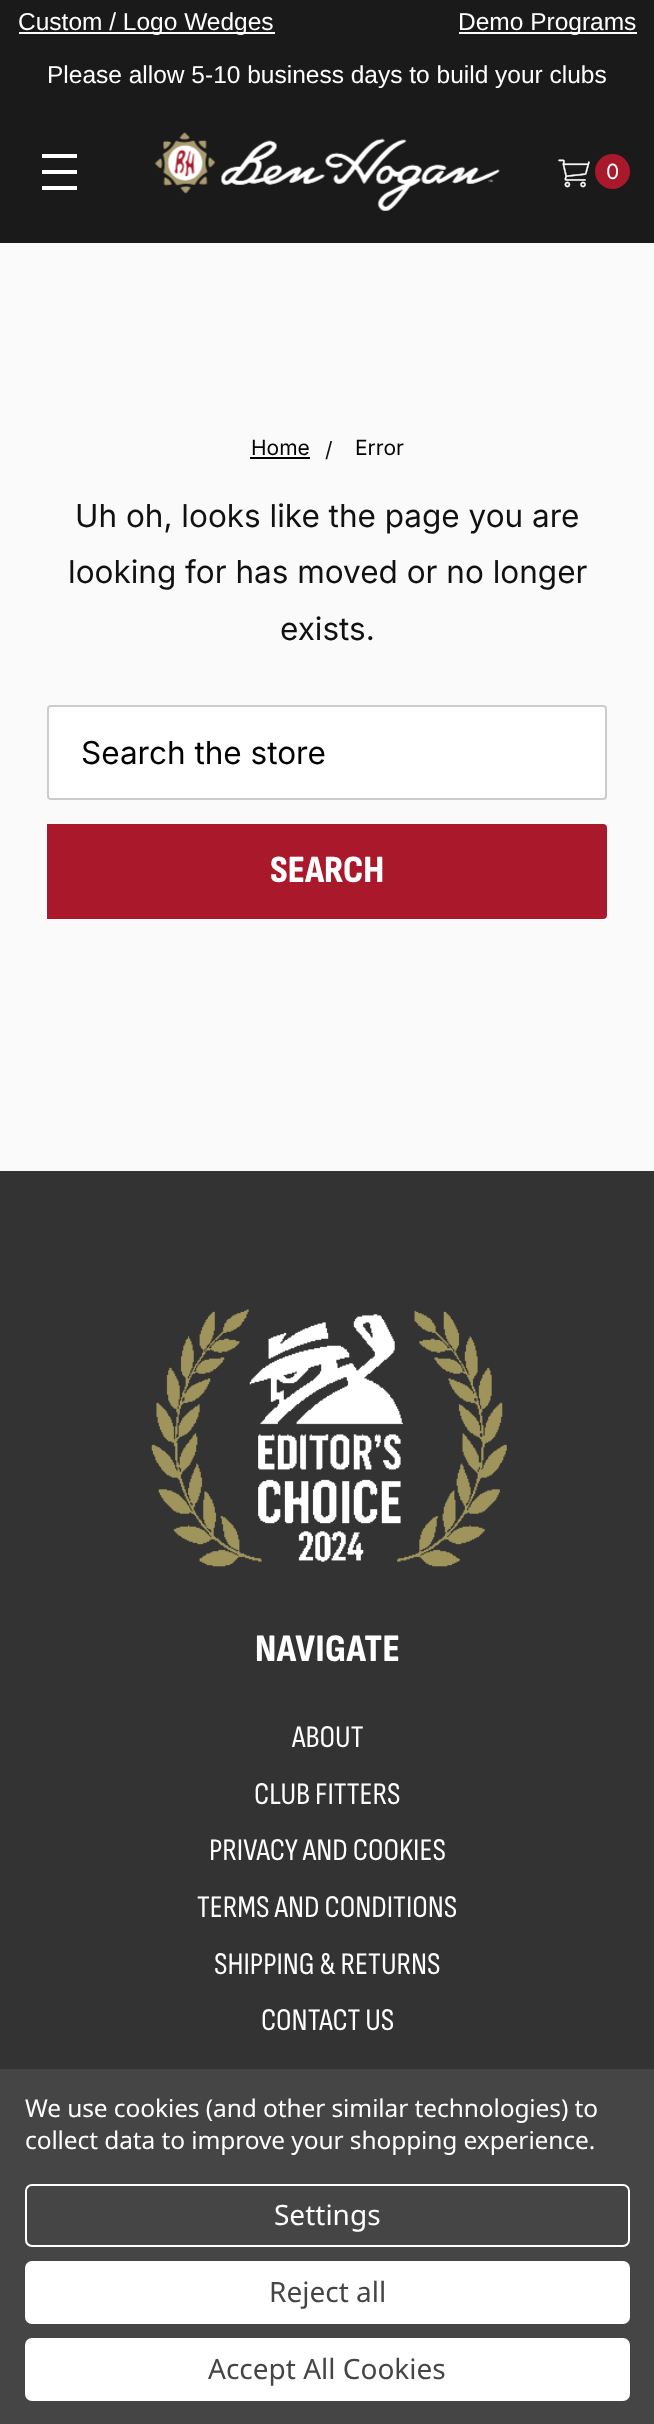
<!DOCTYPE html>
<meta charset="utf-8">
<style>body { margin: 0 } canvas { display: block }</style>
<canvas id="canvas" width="654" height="2424"></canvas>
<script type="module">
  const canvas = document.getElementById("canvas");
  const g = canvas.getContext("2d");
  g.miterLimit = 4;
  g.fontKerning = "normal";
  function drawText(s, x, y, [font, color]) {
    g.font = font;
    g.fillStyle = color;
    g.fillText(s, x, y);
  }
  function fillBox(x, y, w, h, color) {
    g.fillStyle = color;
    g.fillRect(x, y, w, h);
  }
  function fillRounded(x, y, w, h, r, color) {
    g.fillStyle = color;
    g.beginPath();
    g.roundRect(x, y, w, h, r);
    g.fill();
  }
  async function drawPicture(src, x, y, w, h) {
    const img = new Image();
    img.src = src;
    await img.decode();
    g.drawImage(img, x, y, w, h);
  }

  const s1 = ["24.5px Liberation Sans", "#FFFFFF"];
  const s2 = ["21px Inter", "#FFFFFF"];
  const s3 = ["21px Inter", "#000000"];
  const s4 = ["21px Inter", "#111111"];
  const s5 = ["31.5px Inter", "#111111"];
  const s6 = ["31.5px Inter", "#000000"];
  const s7 = ["800 38.5px Sofia Sans Condensed", "#FFFFFF"];
  const s8 = ["800 39px Sofia Sans Condensed", "#FFFFFF"];
  const s9 = ["31.5px Sofia Sans Condensed", "#FFFFFF"];
  const s10 = ["24.5px Noto Sans", "#FFFFFF"];
  const s11 = ["28px Noto Sans", "#FFFFFF"];
  const s12 = ["28px Noto Sans", "#454545"];

  fillBox(0, 0, 654, 2424, "#FAFAFA");
  fillBox(0, 0, 654, 243, "#1A1A1A");
  fillBox(19, 32, 256, 2, "#FFFFFF");
  drawText("Custom / Logo Wedges", 18, 30, s1);
  fillBox(459, 32, 178, 2, "#FFFFFF");
  drawText("Demo Programs", 458, 30, s1);
  drawText("Please allow 5-10 business days to build your clubs", 47, 83, s1);
  fillBox(42, 170, 35, 4, "#FFFFFF");
  fillBox(42, 154, 35, 4, "#FFFFFF");
  fillBox(42, 186, 35, 4, "#FFFFFF");
  await drawPicture("pic1.png", 154, 132, 346, 79);
  await drawPicture("pic2.png", 558, 159, 32, 29);
  g.fillStyle = "#AA182C";
  g.beginPath();
  g.arc(612.5, 171.5, 17.5, 0, Math.PI * 2);
  g.fill();
  drawText("0", 606, 179, s2);
  drawText("Home", 251, 455, s3);
  fillBox(250, 457, 60, 2, "#000000");
  drawText("/", 325, 457, s4);
  drawText("Error", 355, 455, s3);
  drawText("Uh oh, looks like the page you are", 75, 527, s5);
  drawText("looking for has moved or no longer", 68, 583, s5);
  drawText("exists.", 280, 640, s5);
  g.fillStyle = "#FFFFFF";
  g.beginPath();
  g.roundRect(48, 706, 558, 93, 3);
  g.fill();
  g.strokeStyle = "#CCCCCC";
  g.lineWidth = 2;
  g.stroke();
  drawText("Search the store", 81, 764, s6);
  g.fillStyle = "#AA182C";
  g.beginPath();
  g.roundRect(48, 825, 558, 93, [0, 3, 3, 0]);
  g.fill();
  g.strokeStyle = "#AA182C";
  g.stroke();
  drawText("SEARCH", 270, 882, s7);
  fillBox(0, 1171, 654, 898, "#333333");
  await drawPicture("pic3.png", 151, 1309, 356, 258);
  g.letterSpacing = "0.5px";
  drawText("NAVIGATE", 255, 1661, s8);
  g.letterSpacing = "0px";
  drawText("ABOUT", 292, 1747, s9);
  drawText("CLUB FITTERS", 254, 1804, s9);
  drawText("PRIVACY AND COOKIES", 209, 1860, s9);
  drawText("TERMS AND CONDITIONS", 197, 1917, s9);
  drawText("SHIPPING & RETURNS", 214, 1974, s9);
  drawText("CONTACT US", 261, 2030, s9);
  fillBox(0, 2069, 654, 355, "#454545");
  g.letterSpacing = "-0.1px";
  drawText("We use cookies (and other similar technologies) to", 25, 2117, s10);
  drawText("collect data to improve your shopping experience.", 25, 2149, s10);
  g.beginPath();
  g.roundRect(26, 2185, 603, 61, 6);
  g.strokeStyle = "#FFFFFF";
  g.stroke();
  g.letterSpacing = "0px";
  drawText("Settings", 274, 2225, s11);
  fillRounded(25, 2261, 605, 63, 7, "#FFFFFF");
  drawText("Reject all", 269, 2302, s12);
  fillRounded(25, 2338, 605, 63, 7, "#FFFFFF");
  drawText("Accept All Cookies", 208, 2379, s12);
</script>
